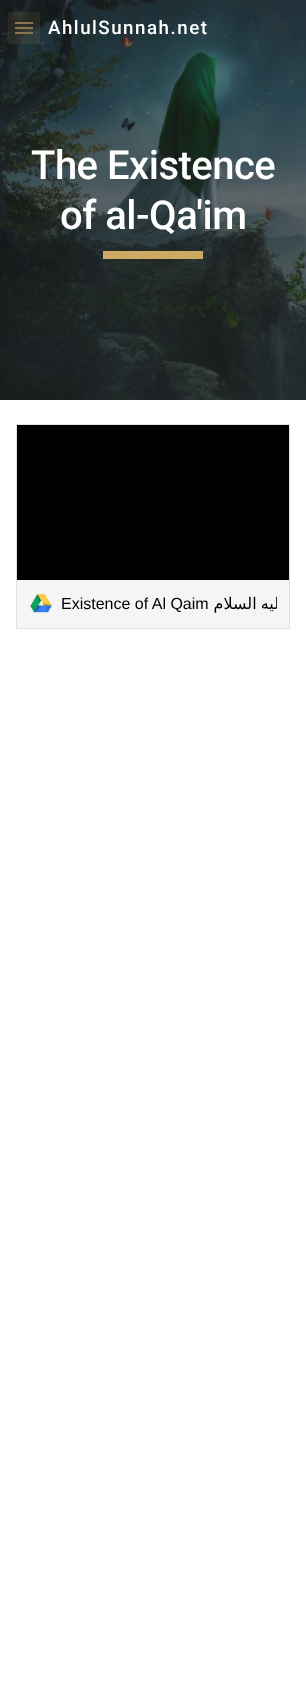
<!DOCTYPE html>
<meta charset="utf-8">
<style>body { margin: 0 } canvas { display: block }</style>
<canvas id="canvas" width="306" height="1703"></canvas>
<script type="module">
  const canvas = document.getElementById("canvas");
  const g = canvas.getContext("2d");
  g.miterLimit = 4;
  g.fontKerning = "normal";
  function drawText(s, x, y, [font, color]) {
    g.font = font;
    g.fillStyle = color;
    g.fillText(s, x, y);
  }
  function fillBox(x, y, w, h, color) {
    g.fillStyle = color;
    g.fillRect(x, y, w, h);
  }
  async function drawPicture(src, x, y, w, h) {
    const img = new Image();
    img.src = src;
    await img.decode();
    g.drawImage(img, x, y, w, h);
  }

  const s1 = ["500 18.75px Roboto", "#FFFFFF"];
  const s2 = ["500 40px Roboto", "#FFFFFF"];
  const s3 = ["16px Liberation Sans", "#000000"];
  const s4 = ["16px DejaVu Sans", "#000000"];

  fillBox(0, 0, 306, 1703, "#FFFFFF");
  await drawPicture("pic1.png", 0, 0, 306, 400);
  fillBox(15, 22, 18, 2, "#857251");
  fillBox(15, 27, 18, 2, "#857251");
  fillBox(15, 32, 18, 2, "#857251");
  fillBox(8, 12, 32, 32, "rgba(183, 153, 81, 0.12)");
  g.letterSpacing = "1.5px";
  drawText("AhlulSunnah.net", 48, 34, s1);
  g.letterSpacing = "-0.5px";
  drawText("The Existence", 31, 179, s2);
  drawText("of al-Qa'im", 60, 229, s2);
  fillBox(103, 251, 100, 8, "#CEA964");
  g.strokeStyle = "#E0E0E0";
  g.strokeRect(16.5, 424.5, 273, 204);
  fillBox(17, 425, 272, 155, "#000000");
  fillBox(17, 580, 272, 48, "#F5F5F5");
  await drawPicture("pic2.png", 30, 594, 22, 19);
  g.letterSpacing = "0px";
  drawText("Existence of Al Qaim", 61, 609, s3);
  g.save();
  g.beginPath();
  g.rect(29, 592, 248, 24);
  g.clip();
  g.wordSpacing = "-1px";
  g.direction = "rtl";
  drawText("عليه السلام", 289, 609, s4);
  g.restore();
</script>
